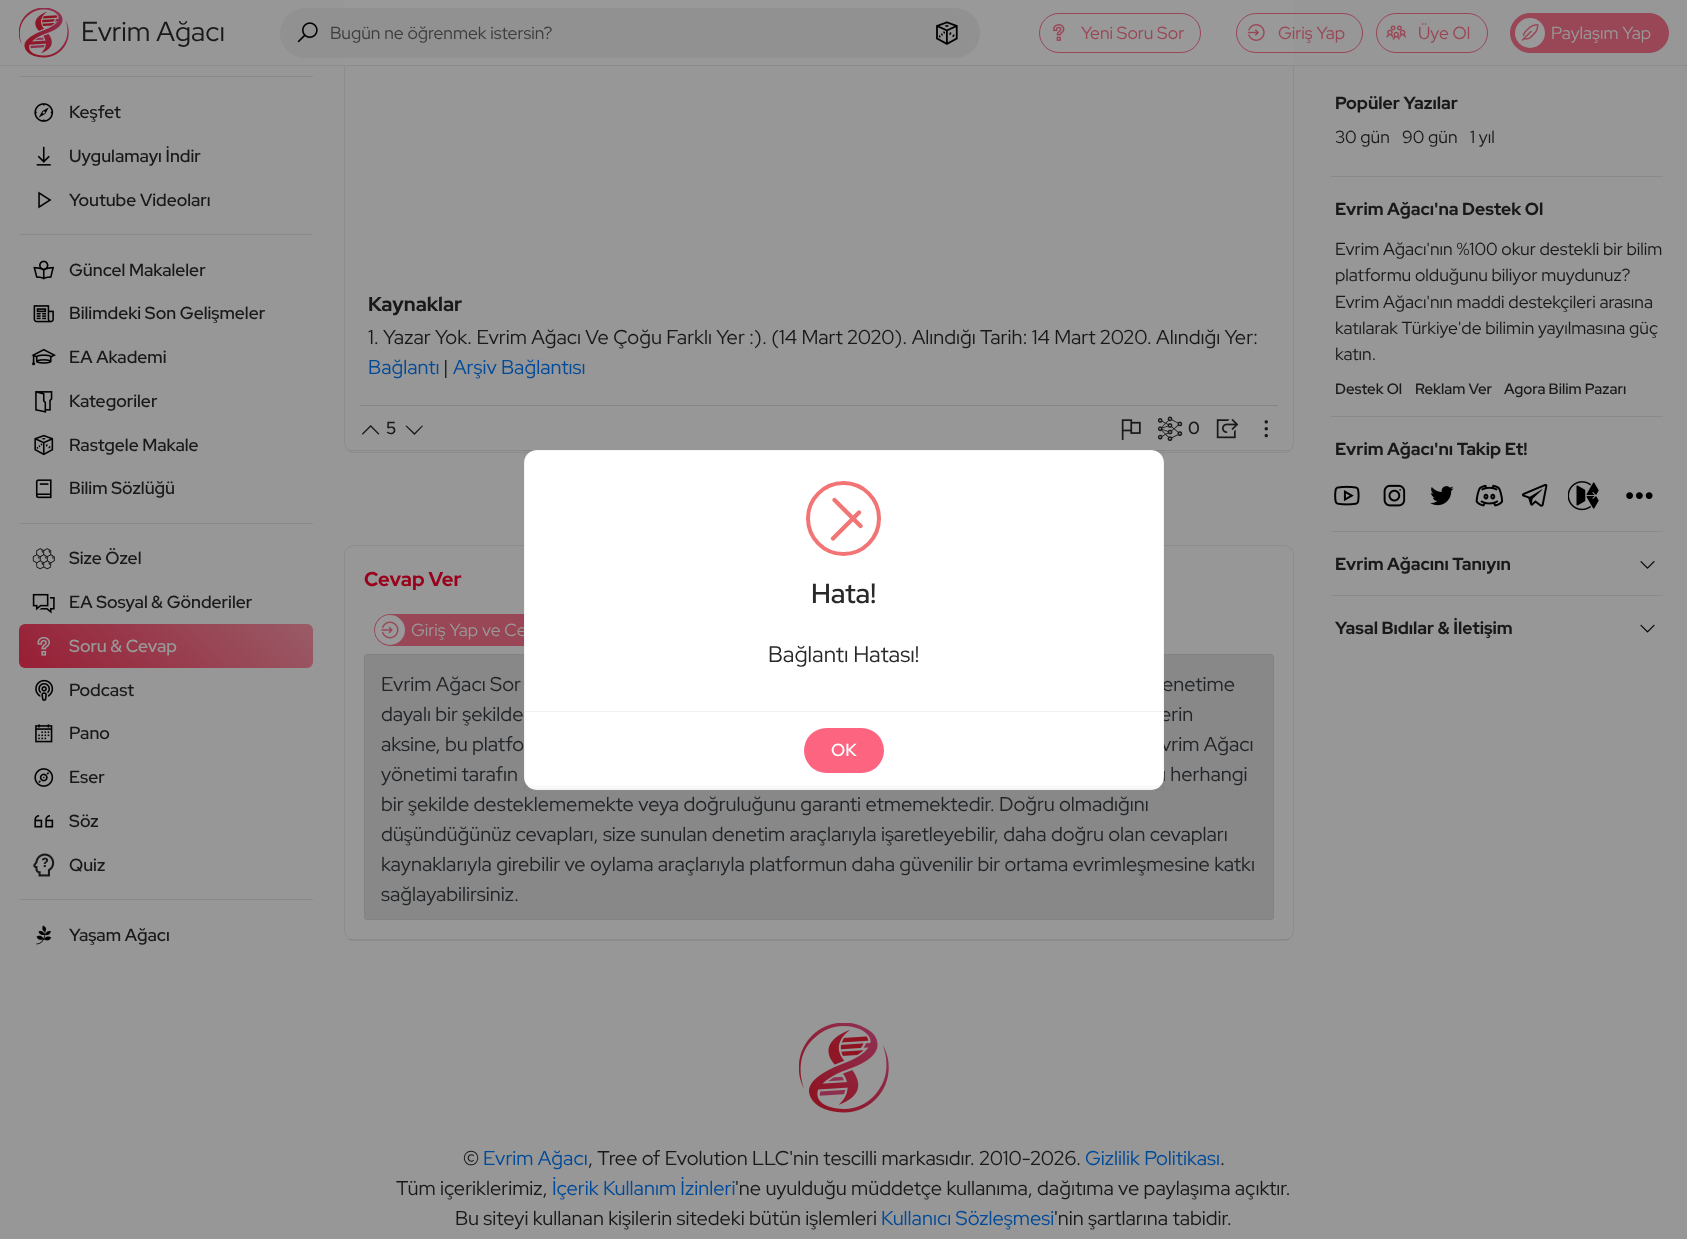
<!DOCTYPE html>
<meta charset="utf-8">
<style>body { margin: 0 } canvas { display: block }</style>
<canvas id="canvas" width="1687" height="1239"></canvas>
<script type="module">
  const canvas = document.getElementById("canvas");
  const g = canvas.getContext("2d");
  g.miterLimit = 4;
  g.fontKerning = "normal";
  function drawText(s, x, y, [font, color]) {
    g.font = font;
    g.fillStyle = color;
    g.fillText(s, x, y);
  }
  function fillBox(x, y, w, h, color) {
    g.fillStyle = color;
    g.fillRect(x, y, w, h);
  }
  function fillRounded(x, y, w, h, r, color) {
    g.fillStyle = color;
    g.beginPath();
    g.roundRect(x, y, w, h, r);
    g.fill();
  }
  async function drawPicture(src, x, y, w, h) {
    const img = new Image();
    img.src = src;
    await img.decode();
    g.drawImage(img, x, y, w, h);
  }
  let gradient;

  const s1 = ["27.5px Red Hat Display", "#191919"];
  const s2 = ["17.5px Red Hat Display", "#3D3D3D"];
  const s3 = ["17.5px Red Hat Display", "#994656"];
  const s4 = ["17.5px Red Hat Display", "#999999"];
  const s5 = ["500 17.5px Red Hat Display", "#191919"];
  const s6 = ["500 17.5px Red Hat Display", "#999999"];
  const s7 = ["bold 20px Red Hat Display", "#191919"];
  const s8 = ["20px Red Hat Display", "#191919"];
  const s9 = ["20px Red Hat Display", "#004A99"];
  const s10 = ["bold 20px Red Hat Display", "#99001C"];
  const s11 = ["20px Red Hat Display", "#222527"];
  const s12 = ["bold 17.5px Red Hat Display", "#191919"];
  const s13 = ["17.5px Red Hat Display", "#191919"];
  const s14 = ["500 15px Red Hat Display", "#191919"];
  const s15 = ["600 27.5px Red Hat Display", "#292929"];
  const s16 = ["22.5px Red Hat Display", "#292929"];
  const s17 = ["500 17.5px Red Hat Display", "#FFFFFF"];

  fillBox(0, 0, 1687, 1239, "#979797");
  g.beginPath();
  g.roundRect(344.5, -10.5, 949, 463, 9.5);
  g.strokeStyle = "#8C8C8C";
  g.stroke();
  fillBox(344, 0, 950, 65, "#999999");
  fillBox(0, 65, 1687, 1, "#8C8C8C");
  await drawPicture("pic1.png", 19, 8, 50, 50);
  drawText("Evrim Ağacı", 81, 41, s1);
  fillRounded(280, 8, 700, 50, 25, "#919191");
  await drawPicture("pic2.png", 297, 22, 21, 21);
  drawText("Bugün ne öğrenmek istersin?", 330, 39, s2);
  await drawPicture("pic3.png", 936, 21, 22, 24);
  g.beginPath();
  g.roundRect(1039.5, 13.5, 161, 39, 19.5);
  g.strokeStyle = "#994656";
  g.stroke();
  await drawPicture("pic4.png", 1053, 24, 12, 17);
  drawText("Yeni Soru Sor", 1081, 39, s3);
  g.beginPath();
  g.roundRect(1236.5, 13.5, 126, 39, 19.5);
  g.stroke();
  await drawPicture("pic5.png", 1247, 24, 18, 17);
  drawText("Giriş Yap", 1278, 39, s3);
  g.beginPath();
  g.roundRect(1376.5, 13.5, 111, 39, 19.5);
  g.stroke();
  await drawPicture("pic6.png", 1386, 25, 20, 15);
  drawText("Üye Ol", 1418, 39, s3);
  g.beginPath();
  g.roundRect(1510.5, 13.5, 158, 39, 19.5);
  g.fill();
  g.stroke();
  g.fillStyle = "#999999";
  g.beginPath();
  g.arc(1530, 33, 15, 0, Math.PI * 2);
  g.fill();
  await drawPicture("pic7.png", 1521, 24, 18, 17);
  drawText("Paylaşım Yap", 1551, 39, s4);
  fillBox(19, 76, 294, 1, "#8A8A8A");
  await drawPicture("pic8.png", 34, 103, 20, 19);
  drawText("Keşfet", 69, 118, s5);
  await drawPicture("pic9.png", 36, 146, 15, 20);
  drawText("Uygulamayı İndir", 69, 162, s5);
  await drawPicture("pic10.png", 38, 191, 14, 18);
  drawText("Youtube Videoları", 69, 206, s5);
  fillBox(19, 234, 294, 1, "#8A8A8A");
  await drawPicture("pic11.png", 33, 260, 21, 20);
  drawText("Güncel Makaleler", 69, 276, s5);
  await drawPicture("pic12.png", 33, 305, 21, 18);
  drawText("Bilimdeki Son Gelişmeler", 69, 319, s5);
  await drawPicture("pic13.png", 31, 348, 25, 18);
  drawText("EA Akademi", 69, 363, s5);
  await drawPicture("pic14.png", 35, 391, 18, 22);
  drawText("Kategoriler", 69, 407, s5);
  await drawPicture("pic15.png", 34, 434, 20, 22);
  drawText("Rastgele Makale", 69, 451, s5);
  await drawPicture("pic16.png", 35, 479, 17, 20);
  drawText("Bilim Sözlüğü", 69, 494, s5);
  fillBox(19, 523, 294, 1, "#8A8A8A");
  await drawPicture("pic17.png", 32, 548, 23, 22);
  drawText("Size Özel", 69, 564, s5);
  await drawPicture("pic18.png", 32, 593, 23, 21);
  drawText("EA Sosyal & Gönderiler", 69, 608, s5);
  gradient = g.createLinearGradient(81, 730, 250, 561);
  gradient.addColorStop(0, "#981E35");
  gradient.addColorStop(1, "#995C67");
  g.fillStyle = gradient;
  g.beginPath();
  g.roundRect(19, 624, 294, 44, 6);
  g.fill();
  await drawPicture("pic19.png", 37, 636, 13, 20);
  drawText("Soru & Cevap", 69, 652, s6);
  await drawPicture("pic20.png", 35, 679, 19, 22);
  drawText("Podcast", 69, 696, s5);
  await drawPicture("pic21.png", 35, 724, 18, 19);
  drawText("Pano", 69, 739, s5);
  await drawPicture("pic22.png", 34, 768, 20, 19);
  drawText("Eser", 69, 783, s5);
  await drawPicture("pic23.png", 34, 815, 20, 13);
  drawText("Söz", 69, 827, s5);
  await drawPicture("pic24.png", 33, 853, 22, 24);
  drawText("Quiz", 69, 871, s5);
  fillBox(19, 899, 294, 1, "#8A8A8A");
  await drawPicture("pic25.png", 36, 925, 16, 20);
  drawText("Yaşam Ağacı", 69, 941, s5);
  fillBox(349, 450, 940, 1, "rgba(25, 25, 25, 0.1)");
  drawText("Kaynaklar", 368, 311, s7);
  drawText("1. Yazar Yok. Evrim Ağacı Ve Çoğu Farklı Yer :). (14 Mart 2020). Alındığı Tarih: 14 Mart 2020. Alındığı Yer:", 368, 344, s8);
  drawText("Bağlantı", 368, 374, s9);
  drawText("|", 443, 374, s8);
  drawText("Arşiv Bağlantısı", 453, 374, s9);
  fillBox(360, 405, 918, 1, "#868686");
  await drawPicture("pic26.png", 361, 425, 19, 10);
  drawText("5", 386, 434, s5);
  g.beginPath();
  g.moveTo(406.5, 425.5);
  g.lineTo(405.5, 426);
  g.lineTo(414.5, 435);
  g.lineTo(423, 426);
  g.lineTo(422, 425.5);
  g.lineTo(414.5, 433);
  g.closePath();
  g.fill();
  await drawPicture("pic27.png", 1121, 419, 20, 21);
  await drawPicture("pic28.png", 1158, 416, 25, 25);
  drawText("0", 1188, 434, s5);
  await drawPicture("pic29.png", 1216, 418, 23, 21);
  await drawPicture("pic30.png", 1264, 420, 4, 18);
  g.beginPath();
  g.roundRect(344.5, 545.5, 949, 395, 9.5);
  g.strokeStyle = "#8C8C8C";
  g.stroke();
  fillBox(349, 939, 940, 1, "rgba(25, 25, 25, 0.1)");
  drawText("Cevap Ver", 364, 586, s10);
  g.fillStyle = "#994656";
  g.beginPath();
  g.roundRect(374.5, 614.5, 224, 31, 15.5);
  g.fill();
  g.strokeStyle = "#994656";
  g.stroke();
  g.fillStyle = "#999999";
  g.beginPath();
  g.arc(390, 630, 15, 0, Math.PI * 2);
  g.fill();
  await drawPicture("pic31.png", 381, 621, 18, 18);
  drawText("Giriş Yap ve Ce", 411, 636, s4);
  g.fillStyle = "#888889";
  g.beginPath();
  g.roundRect(364.5, 654.5, 909, 265, 2.5);
  g.fill();
  g.strokeStyle = "#808283";
  g.stroke();
  drawText("Evrim Ağacı Sor", 381, 691, s11);
  drawText("enetime", 1162, 691, s11);
  drawText("dayalı bir şekilde", 381, 721, s11);
  drawText("erin", 1160, 721, s11);
  drawText("aksine, bu platfo", 381, 751, s11);
  drawText("vrim Ağacı", 1161, 751, s11);
  drawText("yönetimi tarafın", 381, 781, s11);
  drawText("ı herhangi", 1162, 781, s11);
  drawText("bir şekilde desteklememekte veya doğruluğunu garanti etmemektedir. Doğru olmadığını", 381, 811, s11);
  drawText("düşündüğünüz cevapları, size sunulan denetim araçlarıyla işaretleyebilir, daha doğru olan cevapları", 381, 841, s11);
  drawText("kaynaklarıyla girebilir ve oylama araçlarıyla platformun daha güvenilir bir ortama evrimleşmesine katkı", 381, 871, s11);
  drawText("sağlayabilirsiniz.", 381, 901, s11);
  fillBox(1331, 176, 332, 1, "#8A8A8A");
  drawText("Popüler Yazılar", 1335, 109, s12);
  drawText("30 gün", 1335, 143, s13);
  drawText("90 gün", 1402, 143, s13);
  drawText("1 yıl", 1470, 143, s13);
  fillBox(1331, 416, 332, 1, "#8A8A8A");
  drawText("Evrim Ağacı'na Destek Ol", 1335, 215, s12);
  drawText("Evrim Ağacı'nın %100 okur destekli bir bilim", 1335, 255, s13);
  drawText("platformu olduğunu biliyor muydunuz?", 1335, 281, s13);
  drawText("Evrim Ağacı'nın maddi destekçileri arasına", 1335, 308, s13);
  drawText("katılarak Türkiye'de bilimin yayılmasına güç", 1335, 334, s13);
  drawText("katın.", 1335, 360, s13);
  drawText("Destek Ol", 1335, 394, s14);
  drawText("Reklam Ver", 1415, 394, s14);
  drawText("Agora Bilim Pazarı", 1504, 394, s14);
  fillBox(1331, 531, 332, 1, "#8A8A8A");
  drawText("Evrim Ağacı'nı Takip Et!", 1335, 455, s12);
  await drawPicture("pic32.png", 1334, 485, 26, 21);
  await drawPicture("pic33.png", 1383, 484, 23, 23);
  await drawPicture("pic34.png", 1430, 486, 24, 20);
  await drawPicture("pic35.png", 1475, 484, 29, 23);
  await drawPicture("pic36.png", 1522, 483, 26, 24);
  await drawPicture("pic37.png", 1568, 481, 31, 30);
  await drawPicture("pic38.png", 1626, 492, 27, 7);
  fillBox(1331, 595, 332, 1, "#8A8A8A");
  drawText("Evrim Ağacını Tanıyın", 1335, 570, s12);
  await drawPicture("pic39.png", 1640, 561, 15, 8);
  drawText("Yasal Bıdılar & İletişim", 1335, 634, s12);
  await drawPicture("pic40.png", 1640, 624, 15, 9);
  fillRounded(524, 450, 640, 340, 13, "#FFFFFF");
  g.strokeStyle = "rgba(41, 41, 41, 0.05)";
  g.strokeRect(524.5, 450.5, 639, 339);
  fillBox(530, 788, 628, 1, "rgba(41, 41, 41, 0.05)");
  g.beginPath();
  g.arc(843.5, 518.5, 35.5, 0, Math.PI * 2);
  g.strokeStyle = "#F27474";
  g.lineWidth = 4;
  g.stroke();
  g.fillStyle = "#F27474";
  g.beginPath();
  g.moveTo(836, 498.5);
  g.lineTo(862, 524.5);
  g.bezierCurveTo(863, 525, 863, 526.5, 862, 527.5);
  g.bezierCurveTo(861, 528.5, 859.5, 528.5, 859, 527.5);
  g.lineTo(833, 501.5);
  g.bezierCurveTo(832, 500.5, 832, 499.5, 833, 498.5);
  g.bezierCurveTo(833.5, 497.5, 835, 497.5, 836, 498.5);
  g.closePath();
  g.fill();
  g.beginPath();
  g.moveTo(831.5, 537);
  g.lineTo(857.5, 511);
  g.bezierCurveTo(858.5, 510, 860, 510, 860.5, 511);
  g.bezierCurveTo(861.5, 511.5, 861.5, 513, 860.5, 514);
  g.lineTo(834.5, 540);
  g.bezierCurveTo(834, 541, 832.5, 541, 831.5, 540);
  g.bezierCurveTo(830.5, 539, 830.5, 537.5, 831.5, 537);
  g.closePath();
  g.fill();
  drawText("Hata!", 811, 603, s15);
  drawText("Bağlantı Hatası!", 768, 662, s16);
  fillBox(525, 711, 638, 1, "#F0F0F0");
  fillBox(525, 786, 638, 1, "rgba(41, 41, 41, 0.05)");
  fillRounded(804, 728, 80, 45, 22.5, "#FD6480");
  drawText("OK", 831, 756, s17);
  await drawPicture("pic41.png", 799, 1023, 90, 90);
  drawText("©", 463, 1165, s8);
  drawText("Evrim Ağacı", 483, 1165, s9);
  drawText(", Tree of Evolution LLC'nin tescilli markasıdır. 2010-2026.", 588, 1165, s8);
  drawText("Gizlilik Politikası", 1085, 1165, s9);
  drawText(".", 1220, 1165, s8);
  drawText("Tüm içeriklerimiz,", 396, 1195, s8);
  drawText("İçerik Kullanım İzinleri", 552, 1195, s9);
  drawText("'ne uyulduğu müddetçe kullanıma, dağıtıma ve paylaşıma açıktır.", 735, 1195, s8);
  drawText("Bu siteyi kullanan kişilerin sitedeki bütün işlemleri", 455, 1225, s8);
  drawText("Kullanıcı Sözleşmesi", 881, 1225, s9);
  drawText("'nin şartlarına tabidir.", 1054, 1225, s8);
</script>
